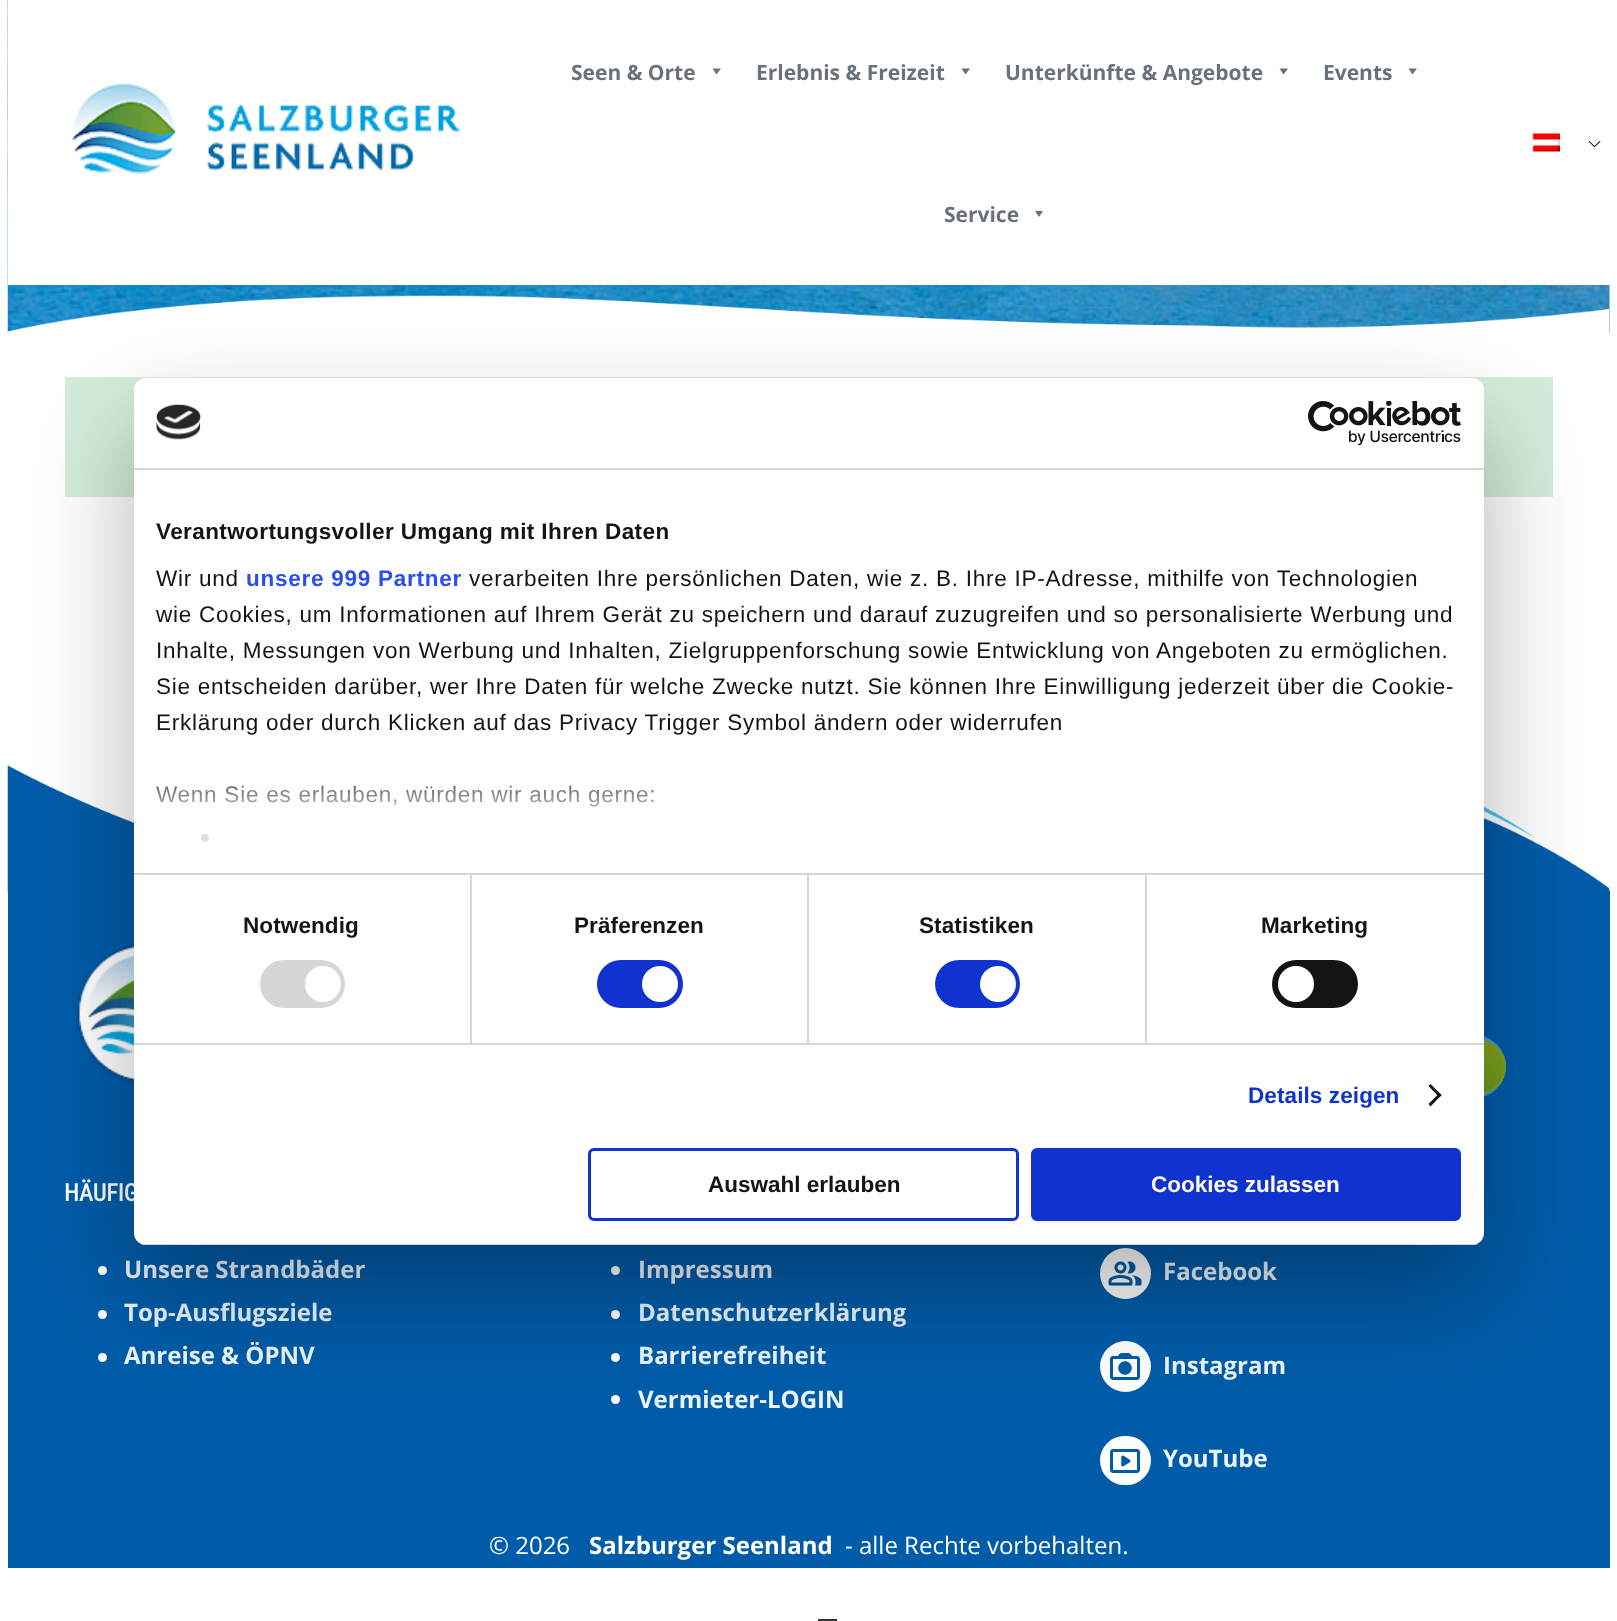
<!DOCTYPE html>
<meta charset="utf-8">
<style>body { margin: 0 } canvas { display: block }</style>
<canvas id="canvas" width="1617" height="1621"></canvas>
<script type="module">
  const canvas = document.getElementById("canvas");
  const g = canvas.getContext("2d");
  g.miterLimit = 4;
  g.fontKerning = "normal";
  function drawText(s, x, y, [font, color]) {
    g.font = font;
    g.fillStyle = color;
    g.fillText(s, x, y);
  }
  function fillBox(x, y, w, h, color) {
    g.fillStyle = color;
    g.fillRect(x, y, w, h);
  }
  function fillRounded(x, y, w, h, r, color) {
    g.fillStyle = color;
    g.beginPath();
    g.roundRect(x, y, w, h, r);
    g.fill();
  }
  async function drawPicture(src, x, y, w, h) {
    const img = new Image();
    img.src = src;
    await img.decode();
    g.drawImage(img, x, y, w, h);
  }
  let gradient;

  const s1 = ["bold 21px Open Sans", "#69727A"];
  const s2 = ["bold 24px Roboto Condensed", "#FFFFFF"];
  const s3 = ["bold 24px Open Sans", "#ECF5FE"];
  const s4 = ["24px Open Sans", "#FFFFFF"];
  const s5 = ["bold 24px Open Sans", "#FFFFFF"];
  const s6 = ["bold 22.5px Liberation Sans", "#141414"];
  const s7 = ["22.5px Liberation Sans", "#141414"];
  const s8 = ["bold 22.5px Liberation Sans", "#2A4EEF"];
  const s9 = ["bold 22.5px Liberation Sans", "#1032CF"];
  const s10 = ["bold 22.5px Liberation Sans", "#FFFFFF"];

  fillBox(0, 0, 1617, 1621, "#FFFFFF");
  fillBox(1609, 285, 1, 48, "#CCCCCC");
  await drawPicture("pic1.png", 7, 0, 1603, 333);
  await drawPicture("pic2.png", 7, 295, 1603, 38);
  fillBox(65, 377, 1488, 120, "#D4EDDA");
  fillBox(8, 0, 1602, 285, "#FFFFFF");
  await drawPicture("pic3.png", 72, 83, 389, 92);
  drawText("Seen & Orte", 571, 80, s1);
  g.beginPath();
  g.moveTo(721, 68.5);
  g.lineTo(716.5, 74.5);
  g.lineTo(712.5, 68.5);
  g.closePath();
  g.fill();
  drawText("Erlebnis & Freizeit", 756, 80, s1);
  g.beginPath();
  g.moveTo(970, 68.5);
  g.lineTo(965.5, 74.5);
  g.lineTo(961.5, 68.5);
  g.closePath();
  g.fill();
  drawText("Unterkünfte & Angebote", 1005, 80, s1);
  g.beginPath();
  g.moveTo(1288, 68.5);
  g.lineTo(1283.5, 74.5);
  g.lineTo(1279.5, 68.5);
  g.closePath();
  g.fill();
  drawText("Events", 1323, 80, s1);
  g.beginPath();
  g.moveTo(1417, 68.5);
  g.lineTo(1412.5, 74.5);
  g.lineTo(1408.5, 68.5);
  g.closePath();
  g.fill();
  drawText("Service", 944, 222, s1);
  g.beginPath();
  g.moveTo(1043, 211);
  g.lineTo(1039, 217);
  g.lineTo(1035, 211);
  g.closePath();
  g.fill();
  await drawPicture("pic4.png", 1589, 140, 12, 8);
  await drawPicture("pic5.png", 1532, 133, 28, 19);
  await drawPicture("pic6.png", 7, 765, 1603, 128);
  fillBox(8, 891, 1602, 677, "#005CA9");
  await drawPicture("pic7.png", 76, 944, 58, 140);
  fillRounded(987, 1035, 519, 63, 31.5, "#439CD9");
  g.save();
  g.beginPath();
  g.roundRect(1344, 1040, 162, 54, 27);
  g.clip();
  gradient = g.createLinearGradient(1410, 1113, 1440, 1020);
  gradient.addColorStop(0, "#37832E");
  gradient.addColorStop(0.51, "#739C22");
  gradient.addColorStop(1, "#85A61B");
  g.fillStyle = gradient;
  g.fillRect(1484, 1041, 21, 51);
  g.restore();
  g.beginPath();
  g.roundRect(1345, 1041, 160, 52, 26);
  g.strokeStyle = "#85A61B";
  g.lineWidth = 2;
  g.stroke();
  drawText("HÄUFIG", 64, 1201, s2);
  g.beginPath();
  g.arc(102.5, 1270.5, 4.5, 0, Math.PI * 2);
  g.fill();
  drawText("Unsere Strandbäder", 124, 1278, s3);
  g.fillStyle = "#FFFFFF";
  g.beginPath();
  g.arc(102.5, 1314.5, 4.5, 0, Math.PI * 2);
  g.fill();
  drawText("Top-Ausflugsziele", 124, 1321, s3);
  g.fillStyle = "#FFFFFF";
  g.beginPath();
  g.arc(102.5, 1357.5, 4.5, 0, Math.PI * 2);
  g.fill();
  drawText("Anreise & ÖPNV", 124, 1364, s3);
  g.fillStyle = "#FFFFFF";
  g.beginPath();
  g.arc(615.5, 1270.5, 4.5, 0, Math.PI * 2);
  g.fill();
  drawText("Impressum", 638, 1278, s3);
  g.fillStyle = "#FFFFFF";
  g.beginPath();
  g.arc(615.5, 1314.5, 4.5, 0, Math.PI * 2);
  g.fill();
  drawText("Datenschutzerklärung", 638, 1321, s3);
  g.fillStyle = "#FFFFFF";
  g.beginPath();
  g.arc(615.5, 1357.5, 4.5, 0, Math.PI * 2);
  g.fill();
  drawText("Barrierefreiheit", 638, 1364, s3);
  g.fillStyle = "#FFFFFF";
  g.beginPath();
  g.arc(615.5, 1399.5, 4.5, 0, Math.PI * 2);
  g.fill();
  drawText("Vermieter-LOGIN", 638, 1408, s3);
  g.fillStyle = "#FFFFFF";
  g.beginPath();
  g.arc(1125.5, 1273.5, 25.5, 0, Math.PI * 2);
  g.fill();
  await drawPicture("pic8.png", 1108, 1261, 34, 25);
  drawText("Facebook", 1163, 1280, s3);
  g.fillStyle = "#FFFFFF";
  g.beginPath();
  g.arc(1125.5, 1366.5, 25.5, 0, Math.PI * 2);
  g.fill();
  await drawPicture("pic9.png", 1110, 1353, 30, 27);
  drawText("Instagram", 1163, 1374, s3);
  fillRounded(1100, 1436, 51, 49, 24.5, "#FFFFFF");
  await drawPicture("pic10.png", 1110, 1449, 30, 24);
  drawText("YouTube", 1163, 1467, s3);
  drawText("© 2026", 489, 1554, s4);
  drawText("Salzburger Seenland", 589, 1554, s5);
  drawText("- alle Rechte vorbehalten.", 845, 1554, s4);
  fillBox(818, 1619, 19, 2, "#333333");
  g.fillStyle = "rgba(0, 0, 0, 0.3)";
  g.filter = "blur(51px)";
  g.beginPath();
  g.roundRect(134, 426, 1350, 867, 12);
  g.fill();
  g.filter = "none";
  fillRounded(134, 378, 1350, 867, 12, "#FFFFFF");
  fillBox(134, 468, 1350, 2, "#D6D6D6");
  await drawPicture("pic11.png", 156, 404, 45, 36);
  await drawPicture("pic12.png", 1308, 401, 153, 45);
  fillBox(134, 873, 1350, 2, "#D6D6D6");
  g.letterSpacing = "0.4px";
  drawText("Verantwortungsvoller Umgang mit Ihren Daten", 156, 539, s6);
  g.letterSpacing = "0.75px";
  drawText("Wir und", 156, 586, s7);
  drawText("unsere 999 Partner", 246, 586, s8);
  drawText("verarbeiten Ihre persönlichen Daten, wie z. B. Ihre IP-Adresse, mithilfe von Technologien", 469, 586, s7);
  drawText("wie Cookies, um Informationen auf Ihrem Gerät zu speichern und darauf zuzugreifen und so personalisierte Werbung und", 156, 622, s7);
  drawText("Inhalte, Messungen von Werbung und Inhalten, Zielgruppenforschung sowie Entwicklung von Angeboten zu ermöglichen.", 156, 658, s7);
  drawText("Sie entscheiden darüber, wer Ihre Daten für welche Zwecke nutzt. Sie können Ihre Einwilligung jederzeit über die Cookie-", 156, 694, s7);
  drawText("Erklärung oder durch Klicken auf das Privacy Trigger Symbol ändern oder widerrufen", 156, 730, s7);
  drawText("Wenn Sie es erlauben, würden wir auch gerne:", 156, 802, s7);
  g.beginPath();
  g.arc(205, 838, 4, 0, Math.PI * 2);
  g.fill();
  gradient = g.createLinearGradient(799, 873, 799, 760);
  gradient.addColorStop(0, "#FFFFFF");
  gradient.addColorStop(0.5, "rgba(255, 255, 255, 0.8)");
  gradient.addColorStop(1, "rgba(255, 255, 255, 0)");
  g.fillStyle = gradient;
  g.fillRect(156, 785, 498, 57);
  fillBox(134, 1043, 1350, 2, "#D6D6D6");
  fillBox(470, 875, 2, 168, "#D6D6D6");
  g.letterSpacing = "0.1px";
  drawText("Notwendig", 243, 933, s6);
  fillRounded(260, 960, 85, 48, 24, "#D6D6D6");
  g.fillStyle = "#FFFFFF";
  g.beginPath();
  g.arc(323, 984, 18, 0, Math.PI * 2);
  g.fill();
  fillBox(807, 875, 2, 168, "#D6D6D6");
  drawText("Präferenzen", 574, 933, s6);
  fillRounded(597, 960, 86, 48, 24, "#1032CF");
  g.fillStyle = "#FFFFFF";
  g.beginPath();
  g.arc(660, 984, 18, 0, Math.PI * 2);
  g.fill();
  fillBox(1145, 875, 2, 168, "#D6D6D6");
  drawText("Statistiken", 919, 933, s6);
  fillRounded(935, 960, 85, 48, 24, "#1032CF");
  g.fillStyle = "#FFFFFF";
  g.beginPath();
  g.arc(998, 984, 18, 0, Math.PI * 2);
  g.fill();
  drawText("Marketing", 1261, 933, s6);
  fillRounded(1272, 960, 86, 48, 24, "#141414");
  g.fillStyle = "#FFFFFF";
  g.beginPath();
  g.arc(1296, 984, 18, 0, Math.PI * 2);
  g.fill();
  drawText("Details zeigen", 1248, 1103, s9);
  g.fillStyle = "#141414";
  g.beginPath();
  g.moveTo(1430.5, 1084);
  g.lineTo(1441.5, 1095);
  g.lineTo(1439.5, 1097.5);
  g.lineTo(1428.5, 1086);
  g.closePath();
  g.fill();
  g.beginPath();
  g.moveTo(1439.5, 1093);
  g.lineTo(1441.5, 1095);
  g.lineTo(1430.5, 1106.5);
  g.lineTo(1428.5, 1104);
  g.closePath();
  g.fill();
  g.save();
  g.beginPath();
  g.roundRect(134, 378, 1350, 867, 12);
  g.clip();
  fillBox(134, 1244, 1350, 1, "#D6D6D6");
  g.restore();
  g.beginPath();
  g.roundRect(589.5, 1149.5, 428, 70, 4.5);
  g.strokeStyle = "#1032CF";
  g.lineWidth = 3;
  g.stroke();
  g.letterSpacing = "0px";
  drawText("Auswahl erlauben", 708, 1192, s6);
  g.fillStyle = "#1032CF";
  g.beginPath();
  g.roundRect(1032.5, 1149.5, 427, 70, 4.5);
  g.fill();
  g.stroke();
  drawText("Cookies zulassen", 1151, 1192, s10);
</script>
